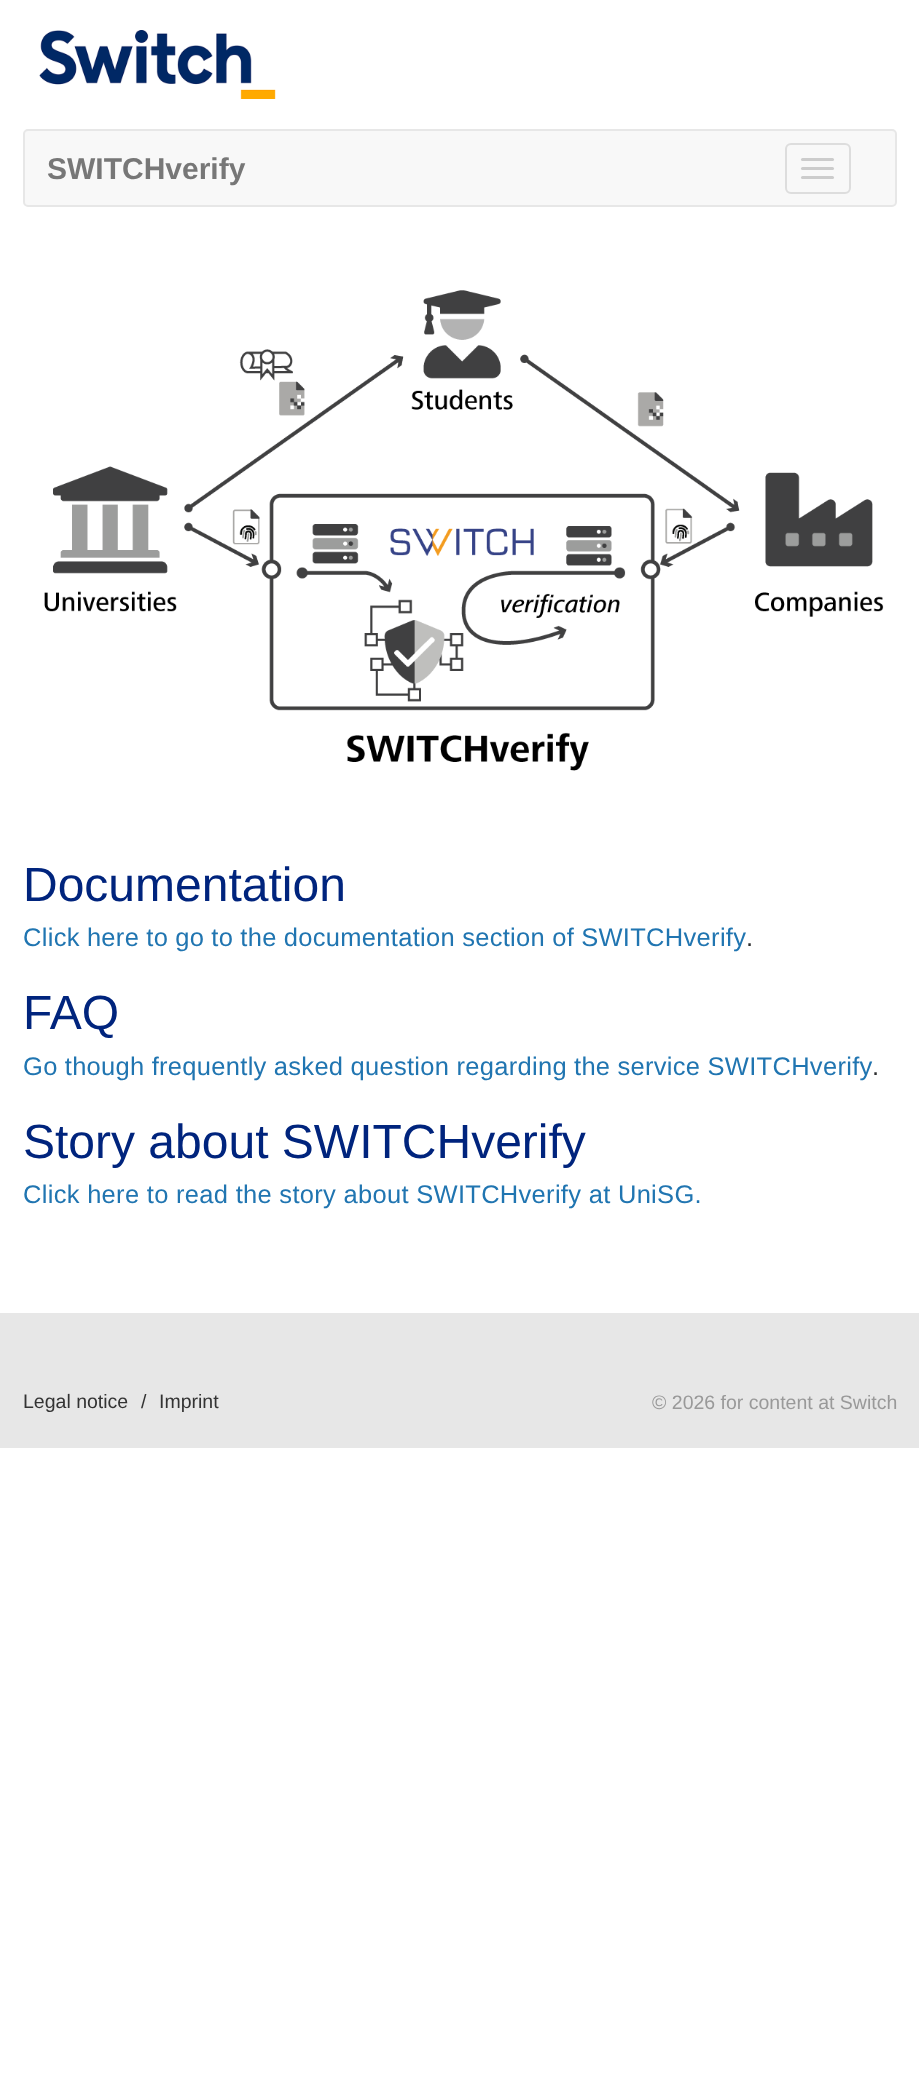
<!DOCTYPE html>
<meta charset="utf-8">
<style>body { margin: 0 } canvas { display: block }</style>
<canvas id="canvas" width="919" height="2099"></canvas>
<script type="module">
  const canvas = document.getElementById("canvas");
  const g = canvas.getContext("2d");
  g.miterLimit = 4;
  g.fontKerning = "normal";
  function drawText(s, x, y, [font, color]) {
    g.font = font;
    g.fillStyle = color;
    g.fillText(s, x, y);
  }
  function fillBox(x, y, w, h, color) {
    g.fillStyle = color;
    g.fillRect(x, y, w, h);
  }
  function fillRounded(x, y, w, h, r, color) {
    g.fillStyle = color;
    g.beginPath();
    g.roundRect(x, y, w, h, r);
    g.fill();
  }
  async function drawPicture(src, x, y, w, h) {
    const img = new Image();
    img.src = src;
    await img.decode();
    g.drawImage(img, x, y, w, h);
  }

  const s1 = ["bold 30px Liberation Sans", "#777777"];
  const s2 = ["48px Liberation Sans", "#00247D"];
  const s3 = ["25.5px Liberation Sans", "#2075B1"];
  const s4 = ["25.5px Liberation Sans", "#2C2E2F"];
  const s5 = ["19.5px Liberation Sans", "#333333"];
  const s6 = ["19.5px Liberation Sans", "#999999"];

  fillBox(0, 0, 919, 2099, "#FFFFFF");
  await drawPicture("pic1.png", 39, 30, 237, 69);
  g.fillStyle = "#F8F8F8";
  g.beginPath();
  g.roundRect(24, 130, 872, 76, 4);
  g.fill();
  g.strokeStyle = "#E7E7E7";
  g.lineWidth = 2;
  g.stroke();
  drawText("SWITCHverify", 47, 179, s1);
  g.beginPath();
  g.roundRect(786, 144, 64, 49, 5);
  g.strokeStyle = "#DDDDDD";
  g.stroke();
  fillRounded(801, 158, 33, 3, 1.5, "#CCCCCC");
  fillRounded(801, 167, 33, 3, 1.5, "#CCCCCC");
  fillRounded(801, 176, 33, 3, 1.5, "#CCCCCC");
  await drawPicture("pic2.png", 44, 290, 840, 481);
  drawText("Documentation", 23, 901, s2);
  g.letterSpacing = "0.3px";
  g.wordSpacing = "-0.25px";
  drawText("Click here to go to the documentation section of SWITCHverify", 23, 946, s3);
  g.wordSpacing = "0px";
  drawText(".", 746, 946, s4);
  g.letterSpacing = "0px";
  drawText("FAQ", 23, 1029, s2);
  g.letterSpacing = "0.3px";
  g.wordSpacing = "-0.25px";
  drawText("Go though frequently asked question regarding the service SWITCHverify", 23, 1075, s3);
  g.wordSpacing = "0px";
  drawText(".", 872, 1075, s4);
  g.letterSpacing = "0px";
  drawText("Story about SWITCHverify", 23, 1158, s2);
  g.letterSpacing = "0.3px";
  drawText("Click here to read the story about SWITCHverify at UniSG.", 23, 1203, s3);
  fillBox(0, 1313, 919, 135, "#E7E7E7");
  g.letterSpacing = "0px";
  drawText("Legal notice", 23, 1408, s5);
  drawText("/", 141, 1408, s5);
  drawText("Imprint", 159, 1408, s5);
  drawText("© 2026 for content at Switch", 652, 1409, s6);
</script>
